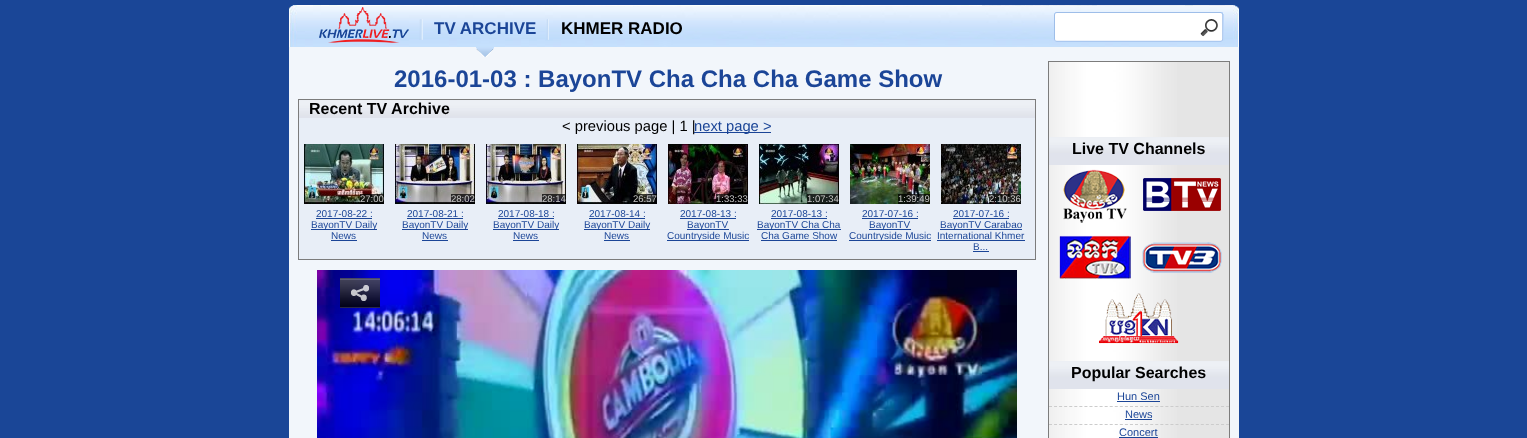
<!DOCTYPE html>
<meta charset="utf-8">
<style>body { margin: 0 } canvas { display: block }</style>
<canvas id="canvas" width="1527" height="438"></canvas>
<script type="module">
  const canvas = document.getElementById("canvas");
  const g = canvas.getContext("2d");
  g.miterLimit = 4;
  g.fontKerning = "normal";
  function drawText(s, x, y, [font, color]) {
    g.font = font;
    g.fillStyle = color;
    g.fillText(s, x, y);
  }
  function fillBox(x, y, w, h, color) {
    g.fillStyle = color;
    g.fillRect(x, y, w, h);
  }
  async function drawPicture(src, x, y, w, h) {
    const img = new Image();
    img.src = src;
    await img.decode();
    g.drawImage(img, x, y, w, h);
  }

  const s1 = ["bold 17px Liberation Sans", "#1B4597"];
  const s2 = ["bold 17px Liberation Sans", "#000000"];
  const s3 = ["bold 24px Liberation Sans", "#1B4597"];
  const s4 = ["bold 16px Liberation Sans", "#000000"];
  const s5 = ["14.75px Liberation Sans", "#000000"];
  const s6 = ["14.75px Liberation Sans", "#1B4597"];
  const s7 = ["9.5px Liberation Sans", "#C5C5C4"];
  const s8 = ["10px Liberation Sans", "#1B4597"];
  const s9 = ["11px Liberation Sans", "#1B4597"];

  fillBox(0, 0, 1527, 438, "#1A4697");
  await drawPicture("pic1.png", 289, 5, 950, 42);
  await drawPicture("pic2.png", 319, 7, 90, 36);
  await drawPicture("pic3.png", 419, 19, 4, 21);
  fillBox(289, 47, 950, 391, "#F2F6FB");
  await drawPicture("pic4.png", 476, 47, 18, 10);
  drawText("TV ARCHIVE", 434, 34, s1);
  await drawPicture("pic5.png", 546, 19, 3, 21);
  drawText("KHMER RADIO", 561, 34, s2);
  await drawPicture("pic6.png", 1054, 12, 170, 30);
  await drawPicture("pic7.png", 1197, 16, 24, 24);
  drawText("2016-01-03 : BayonTV Cha Cha Cha Game Show", 394, 87, s3);
  fillBox(299, 118, 736, 141, "#E8EEF7");
  g.strokeStyle = "#7C7C7C";
  g.strokeRect(298.5, 99.5, 737, 160);
  await drawPicture("pic8.png", 299, 100, 736, 18);
  drawText("Recent TV Archive", 309, 114, s4);
  drawText("< previous page | 1 |", 562, 131, s5);
  fillBox(694, 132, 77, 1, "#1B4597");
  drawText("next page >", 694, 131, s6);
  await drawPicture("pic9.png", 304, 144, 80, 60);
  fillBox(360, 194, 24, 10, "rgba(0, 0, 0, 0.75)");
  drawText("27:00", 360, 202, s7);
  drawText("2017-08-22 :", 316, 217, s8);
  fillBox(316, 218, 56, 1, "#1B4597");
  fillBox(311, 229, 66, 1, "#1B4597");
  drawText("BayonTV Daily", 311, 228, s8);
  drawText("News", 331, 239, s8);
  fillBox(331, 240, 26, 1, "#1B4597");
  await drawPicture("pic10.png", 395, 144, 80, 60);
  fillBox(451, 194, 24, 10, "rgba(0, 0, 0, 0.75)");
  drawText("28:02", 451, 202, s7);
  drawText("2017-08-21 :", 407, 217, s8);
  fillBox(407, 218, 56, 1, "#1B4597");
  fillBox(402, 229, 66, 1, "#1B4597");
  drawText("BayonTV Daily", 402, 228, s8);
  drawText("News", 422, 239, s8);
  fillBox(422, 240, 26, 1, "#1B4597");
  await drawPicture("pic11.png", 486, 144, 80, 60);
  fillBox(542, 194, 24, 10, "rgba(0, 0, 0, 0.75)");
  drawText("28:14", 542, 202, s7);
  drawText("2017-08-18 :", 498, 217, s8);
  fillBox(498, 218, 56, 1, "#1B4597");
  fillBox(493, 229, 66, 1, "#1B4597");
  drawText("BayonTV Daily", 493, 228, s8);
  drawText("News", 513, 239, s8);
  fillBox(513, 240, 26, 1, "#1B4597");
  await drawPicture("pic12.png", 577, 144, 80, 60);
  fillBox(633, 194, 24, 10, "rgba(0, 0, 0, 0.75)");
  drawText("26:57", 633, 202, s7);
  drawText("2017-08-14 :", 589, 217, s8);
  fillBox(589, 218, 56, 1, "#1B4597");
  fillBox(584, 229, 66, 1, "#1B4597");
  drawText("BayonTV Daily", 584, 228, s8);
  drawText("News", 604, 239, s8);
  fillBox(604, 240, 26, 1, "#1B4597");
  await drawPicture("pic13.png", 668, 144, 80, 60);
  fillBox(716, 194, 32, 10, "rgba(0, 0, 0, 0.75)");
  drawText("1:33:33", 716, 202, s7);
  drawText("2017-08-13 :", 680, 217, s8);
  fillBox(680, 218, 56, 1, "#1B4597");
  fillBox(687, 229, 42, 1, "#1B4597");
  drawText("BayonTV", 687, 228, s8);
  fillBox(667, 240, 82, 1, "#1B4597");
  drawText("Countryside Music", 667, 239, s8);
  await drawPicture("pic14.png", 759, 144, 80, 60);
  fillBox(807, 194, 32, 10, "rgba(0, 0, 0, 0.75)");
  drawText("1:07:34", 807, 202, s7);
  drawText("2017-08-13 :", 771, 217, s8);
  fillBox(771, 218, 56, 1, "#1B4597");
  fillBox(757, 229, 84, 1, "#1B4597");
  drawText("BayonTV Cha Cha", 757, 228, s8);
  drawText("Cha Game Show", 761, 239, s8);
  fillBox(761, 240, 76, 1, "#1B4597");
  await drawPicture("pic15.png", 850, 144, 80, 60);
  fillBox(898, 194, 32, 10, "rgba(0, 0, 0, 0.75)");
  drawText("1:39:49", 898, 202, s7);
  drawText("2017-07-16 :", 862, 217, s8);
  fillBox(862, 218, 56, 1, "#1B4597");
  fillBox(869, 229, 42, 1, "#1B4597");
  drawText("BayonTV", 869, 228, s8);
  fillBox(849, 240, 82, 1, "#1B4597");
  drawText("Countryside Music", 849, 239, s8);
  await drawPicture("pic16.png", 941, 144, 80, 60);
  fillBox(989, 194, 32, 10, "rgba(0, 0, 0, 0.75)");
  drawText("2:10:36", 989, 202, s7);
  drawText("2017-07-16 :", 953, 217, s8);
  fillBox(953, 218, 56, 1, "#1B4597");
  fillBox(940, 229, 82, 1, "#1B4597");
  drawText("BayonTV Carabao", 940, 228, s8);
  drawText("International Khmer", 937, 239, s8);
  fillBox(937, 240, 88, 1, "#1B4597");
  drawText("B...", 973, 250, s8);
  fillBox(973, 251, 16, 1, "#1B4597");
  await drawPicture("pic17.png", 317, 270, 700, 168);
  await drawPicture("pic18.png", 340, 278, 40, 30);
  await drawPicture("pic19.png", 351, 285, 18, 16);
  await drawPicture("pic20.png", 1049, 62, 180, 376);
  g.strokeRect(1048.5, 61.5, 181, 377);
  await drawPicture("pic21.png", 1049, 137, 180, 28);
  drawText("Live TV Channels", 1072, 154, s4);
  await drawPicture("pic22.png", 1063, 169, 64, 54);
  await drawPicture("pic23.png", 1143, 178, 78, 33);
  await drawPicture("pic24.png", 1059, 235, 72, 44);
  await drawPicture("pic25.png", 1142, 242, 80, 31);
  await drawPicture("pic26.png", 1099, 293, 80, 51);
  await drawPicture("pic21.png", 1049, 361, 180, 28);
  drawText("Popular Searches", 1071, 378, s4);
  g.beginPath();
  g.moveTo(1049, 406.5);
  g.lineTo(1229, 406.5);
  g.strokeStyle = "#CCCCCC";
  g.setLineDash([3, 2.06]);
  g.stroke();
  drawText("Hun Sen", 1117, 400, s9);
  fillBox(1117, 401, 43, 1, "#1B4597");
  g.beginPath();
  g.moveTo(1049, 424.5);
  g.lineTo(1229, 424.5);
  g.stroke();
  drawText("News", 1125, 418, s9);
  fillBox(1125, 419, 27, 1, "#1B4597");
  drawText("Concert", 1119, 436, s9);
  fillBox(1119, 437, 39, 1, "#1B4597");
</script>
